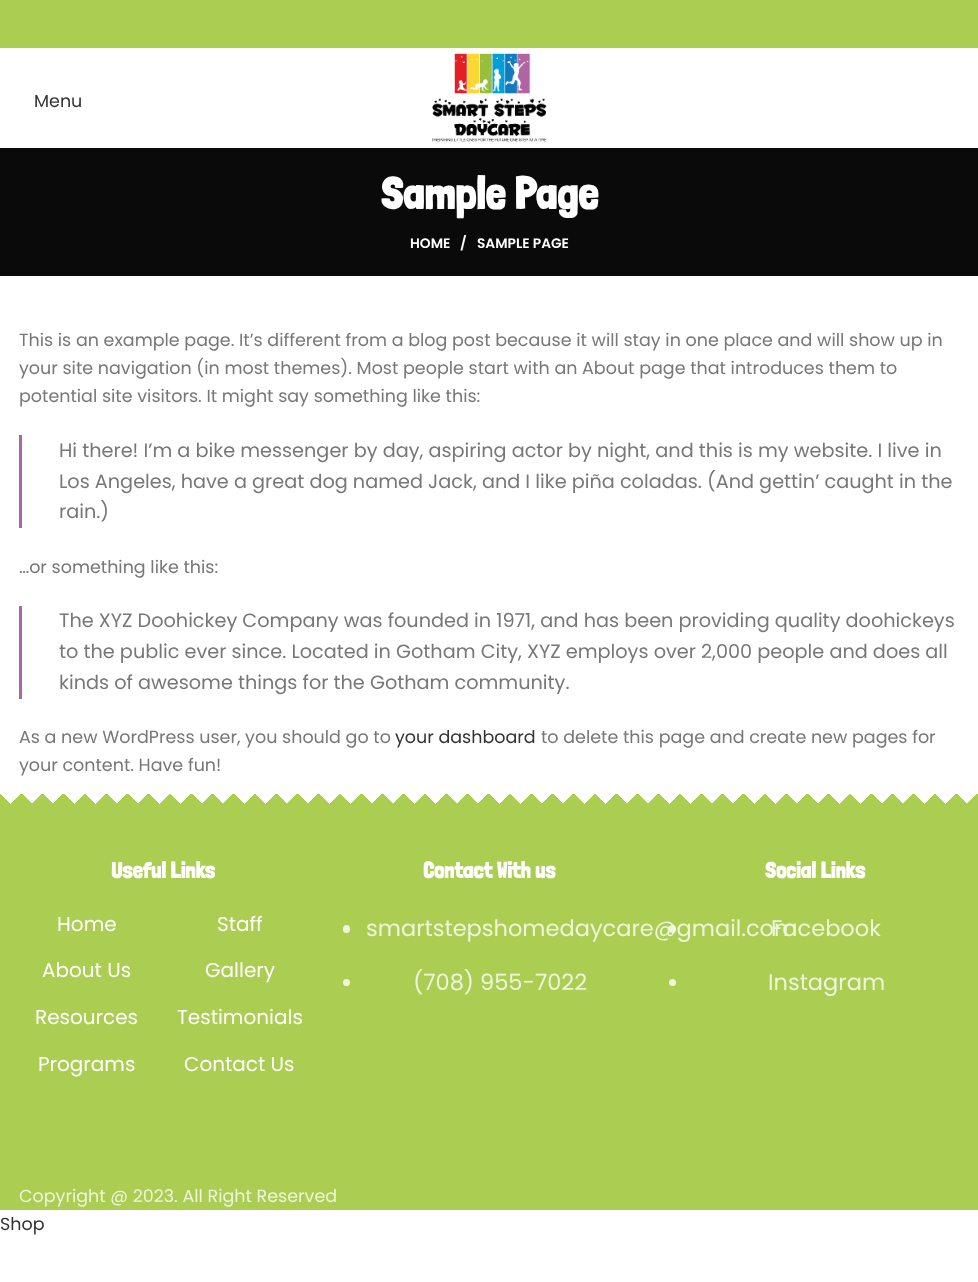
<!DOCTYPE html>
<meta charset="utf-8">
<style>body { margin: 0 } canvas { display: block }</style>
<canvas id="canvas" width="978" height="1282"></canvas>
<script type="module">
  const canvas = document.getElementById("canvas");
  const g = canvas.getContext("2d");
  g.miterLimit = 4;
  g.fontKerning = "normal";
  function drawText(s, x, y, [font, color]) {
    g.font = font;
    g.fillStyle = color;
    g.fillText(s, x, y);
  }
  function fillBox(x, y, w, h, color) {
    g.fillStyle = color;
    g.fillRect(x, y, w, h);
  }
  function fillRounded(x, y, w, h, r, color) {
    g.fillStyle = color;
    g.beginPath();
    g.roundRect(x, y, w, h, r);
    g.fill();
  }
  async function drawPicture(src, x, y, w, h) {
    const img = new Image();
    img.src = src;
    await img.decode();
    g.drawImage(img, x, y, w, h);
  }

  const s1 = ["17.5px Poppins", "#333333"];
  const s2 = ["bold 45px Londrina Solid", "#FFFFFF"];
  const s3 = ["600 13.75px Poppins", "#FFFFFF"];
  const s4 = ["17.5px Poppins", "#777777"];
  const s5 = ["19.25px Poppins", "#777777"];
  const s6 = ["bold 22.5px Londrina Solid", "#FFFFFF"];
  const s7 = ["20px Poppins", "#FFFFFF"];
  const s8 = ["22.5px Poppins", "#EEF5DC"];
  const s9 = ["17.5px Poppins", "#EEF5DC"];

  fillBox(0, 0, 978, 1282, "#FFFFFF");
  fillBox(0, 0, 978, 48, "#ABCD52");
  drawText("Menu", 34, 107, s1);
  await drawPicture("pic1.png", 432, 53, 115, 89);
  fillBox(0, 148, 978, 128, "#0A0A0A");
  drawText("Sample Page", 381, 209, s2);
  drawText("HOME", 410, 248, s3);
  drawText("/", 460, 248, s3);
  drawText("SAMPLE PAGE", 477, 248, s3);
  drawText("This is an example page. It’s different from a blog post because it will stay in one place and will show up in", 19, 346, s4);
  drawText("your site navigation (in most themes). Most people start with an About page that introduces them to", 19, 374, s4);
  drawText("potential site visitors. It might say something like this:", 19, 402, s4);
  fillBox(19, 435, 3, 93, "#B064A4");
  drawText("Hi there! I’m a bike messenger by day, aspiring actor by night, and this is my website. I live in", 59, 457, s5);
  drawText("Los Angeles, have a great dog named Jack, and I like piña coladas. (And gettin’ caught in the", 59, 488, s5);
  drawText("rain.)", 59, 518, s5);
  drawText("…or something like this:", 19, 573, s4);
  fillBox(19, 606, 3, 93, "#B064A4");
  drawText("The XYZ Doohickey Company was founded in 1971, and has been providing quality doohickeys", 59, 627, s5);
  drawText("to the public ever since. Located in Gotham City, XYZ employs over 2,000 people and does all", 59, 658, s5);
  drawText("kinds of awesome things for the Gotham community.", 59, 689, s5);
  drawText("As a new WordPress user, you should go to", 19, 743, s4);
  drawText("your dashboard", 395, 743, s1);
  drawText("to delete this page and create new pages for", 541, 743, s4);
  drawText("your content. Have fun!", 19, 771, s4);
  fillBox(0, 804, 978, 406, "#ABCD52");
  await drawPicture("pic2.png", 0, 794, 967, 10);
  await drawPicture("pic3.png", 11, 794, 967, 10);
  drawText("Useful Links", 111, 878, s6);
  drawText("Home", 57, 931, s7);
  drawText("Staff", 217, 931, s7);
  drawText("About Us", 42, 977, s7);
  drawText("Gallery", 205, 977, s7);
  drawText("Resources", 35, 1024, s7);
  drawText("Testimonials", 177, 1024, s7);
  drawText("Programs", 38, 1071, s7);
  drawText("Contact Us", 184, 1071, s7);
  drawText("Contact With us", 423, 878, s6);
  fillRounded(343, 925, 7, 8, 3.5, "#EEF5DC");
  drawText("smartstepshomedaycare@gmail.com", 366, 936, s8);
  g.beginPath();
  g.arc(346.5, 982.5, 3.5, 0, Math.PI * 2);
  g.fill();
  drawText("(708) 955-7022", 413, 990, s8);
  drawText("Social Links", 765, 878, s6);
  fillRounded(669, 925, 7, 8, 3.5, "rgba(255, 255, 255, 0.8)");
  drawText("Facebook", 771, 936, s8);
  g.beginPath();
  g.arc(672.5, 982.5, 3.5, 0, Math.PI * 2);
  g.fill();
  drawText("Instagram", 768, 990, s8);
  drawText("Copyright @ 2023. All Right Reserved", 19, 1202, s9);
  drawText("Shop", 0, 1230, s1);
</script>
